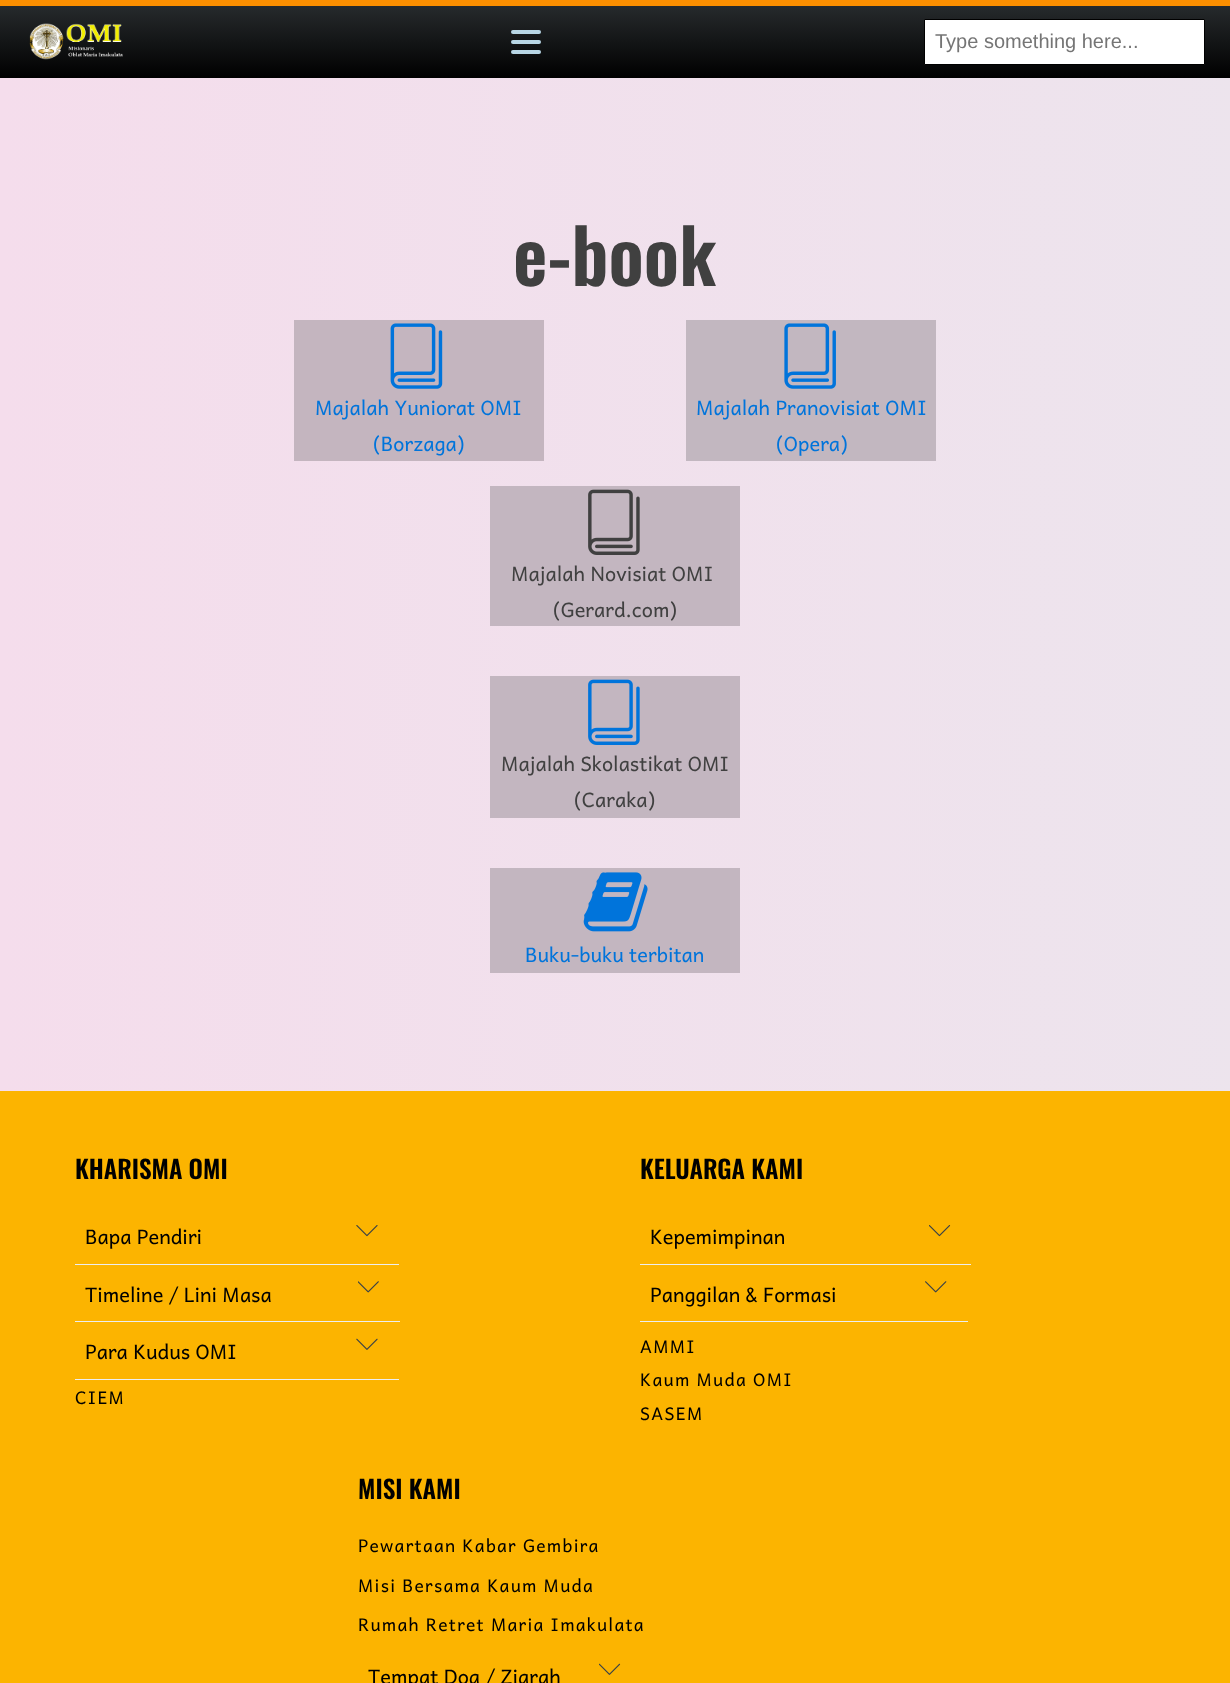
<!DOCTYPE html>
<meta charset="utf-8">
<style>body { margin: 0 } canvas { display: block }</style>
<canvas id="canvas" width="1230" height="1683"></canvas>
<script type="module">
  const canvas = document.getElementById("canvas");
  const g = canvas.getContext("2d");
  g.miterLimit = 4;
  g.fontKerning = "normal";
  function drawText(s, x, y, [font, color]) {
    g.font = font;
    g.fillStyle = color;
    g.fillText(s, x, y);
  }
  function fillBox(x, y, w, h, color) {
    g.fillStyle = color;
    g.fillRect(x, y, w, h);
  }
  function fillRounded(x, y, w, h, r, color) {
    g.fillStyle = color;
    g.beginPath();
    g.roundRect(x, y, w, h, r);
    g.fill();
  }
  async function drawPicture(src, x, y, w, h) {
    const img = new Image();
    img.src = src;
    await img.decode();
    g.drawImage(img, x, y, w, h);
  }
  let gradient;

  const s1 = ["20px Liberation Sans", "#757575"];
  const s2 = ["600 75px Oswald", "#404040"];
  const s3 = ["20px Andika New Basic", "#0074DB"];
  const s4 = ["20px Andika New Basic", "#404040"];
  const s5 = ["600 25px Oswald", "#000000"];
  const s6 = ["20px Andika New Basic", "#000000"];
  const s7 = ["17.5px Andika New Basic", "#000000"];

  fillBox(0, 0, 1230, 1683, "#FFFFFF");
  gradient = g.createLinearGradient(615, 6.2, 615, 78);
  gradient.addColorStop(0, "#262A2C");
  gradient.addColorStop(1, "#000000");
  g.fillStyle = gradient;
  g.fillRect(0, 6, 1230, 72);
  fillBox(0, 0, 1230, 6, "#FC8F00");
  await drawPicture("pic1.png", 29, 23, 94, 37);
  fillRounded(511, 30, 30, 4, 2, "#B8D6E5");
  fillRounded(511, 40, 30, 4, 2, "#B8D6E5");
  fillRounded(511, 50, 30, 4, 2, "#B8D6E5");
  g.fillStyle = "#FFFFFF";
  g.beginPath();
  g.rect(924.5, 19.5, 280, 45);
  g.fill();
  g.strokeStyle = "#000000";
  g.stroke();
  drawText("Type something here...", 935, 48, s1);
  gradient = g.createLinearGradient(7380, 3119, 0, 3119);
  gradient.addColorStop(0, "#F6F9E8");
  gradient.addColorStop(0.5, "#DCF2EF");
  gradient.addColorStop(1, "#F5DDEC");
  g.fillStyle = gradient;
  g.fillRect(0, 78, 1230, 1013);
  drawText("e-book", 513, 286, s2);
  fillBox(294, 320, 250, 141, "#C4B5BF");
  await drawPicture("pic2.png", 390, 323, 53, 66);
  drawText("Majalah Yuniorat OMI", 315, 415, s3);
  drawText("(Borzaga)", 373, 451, s3);
  fillBox(686, 320, 250, 141, "#C2B7C0");
  await drawPicture("pic3.png", 784, 323, 52, 66);
  drawText("Majalah Pranovisiat OMI", 696, 415, s3);
  drawText("(Opera)", 776, 451, s3);
  fillBox(490, 486, 250, 140, "#C3B6C0");
  await drawPicture("pic4.png", 588, 489, 52, 66);
  drawText("Majalah Novisiat OMI", 511, 581, s4);
  drawText("(Gerard.com)", 553, 617, s4);
  fillBox(490, 676, 250, 142, "#C3B6C0");
  await drawPicture("pic5.png", 588, 679, 52, 66);
  drawText("Majalah Skolastikat OMI", 501, 771, s4);
  drawText("(Caraka)", 574, 807, s4);
  fillBox(490, 868, 250, 105, "#C3B6C0");
  await drawPicture("pic6.png", 583, 872, 65, 60);
  drawText("Buku-buku terbitan", 525, 962, s3);
  fillBox(0, 1091, 1230, 592, "#FCB400");
  drawText("KHARISMA OMI", 75, 1179, s5);
  fillBox(75, 1264, 324, 1, "#ECEEEF");
  drawText("Bapa Pendiri", 85, 1244, s6);
  await drawPicture("pic7.png", 356, 1225, 22, 12);
  fillBox(75, 1321, 325, 1, "#ECEEEF");
  drawText("Timeline / Lini Masa", 85, 1302, s6);
  await drawPicture("pic8.png", 358, 1281, 21, 12);
  fillBox(75, 1379, 324, 1, "#ECEEEF");
  drawText("Para Kudus OMI", 85, 1359, s6);
  await drawPicture("pic9.png", 356, 1338, 22, 12);
  g.letterSpacing = "1.25px";
  drawText("CIEM", 75, 1404, s7);
  g.letterSpacing = "0px";
  drawText("KELUARGA KAMI", 640, 1179, s5);
  fillBox(640, 1264, 331, 1, "#ECEEEF");
  drawText("Kepemimpinan", 650, 1244, s6);
  await drawPicture("pic10.png", 929, 1225, 22, 12);
  fillBox(640, 1321, 328, 1, "#ECEEEF");
  drawText("Panggilan & Formasi", 650, 1302, s6);
  await drawPicture("pic11.png", 925, 1281, 22, 12);
  g.letterSpacing = "1.25px";
  drawText("AMMI", 640, 1353, s7);
  drawText("Kaum Muda OMI", 640, 1386, s7);
  drawText("SASEM", 640, 1420, s7);
  g.letterSpacing = "0px";
  drawText("MISI KAMI", 358, 1499, s5);
  g.letterSpacing = "1.25px";
  drawText("Pewartaan Kabar Gembira", 358, 1552, s7);
  drawText("Misi Bersama Kaum Muda", 358, 1592, s7);
  drawText("Rumah Retret Maria Imakulata", 358, 1631, s7);
  g.letterSpacing = "0px";
  drawText("Tempat Doa / Ziarah", 368, 1684, s6);
  await drawPicture("pic12.png", 599, 1663, 22, 12);
</script>
